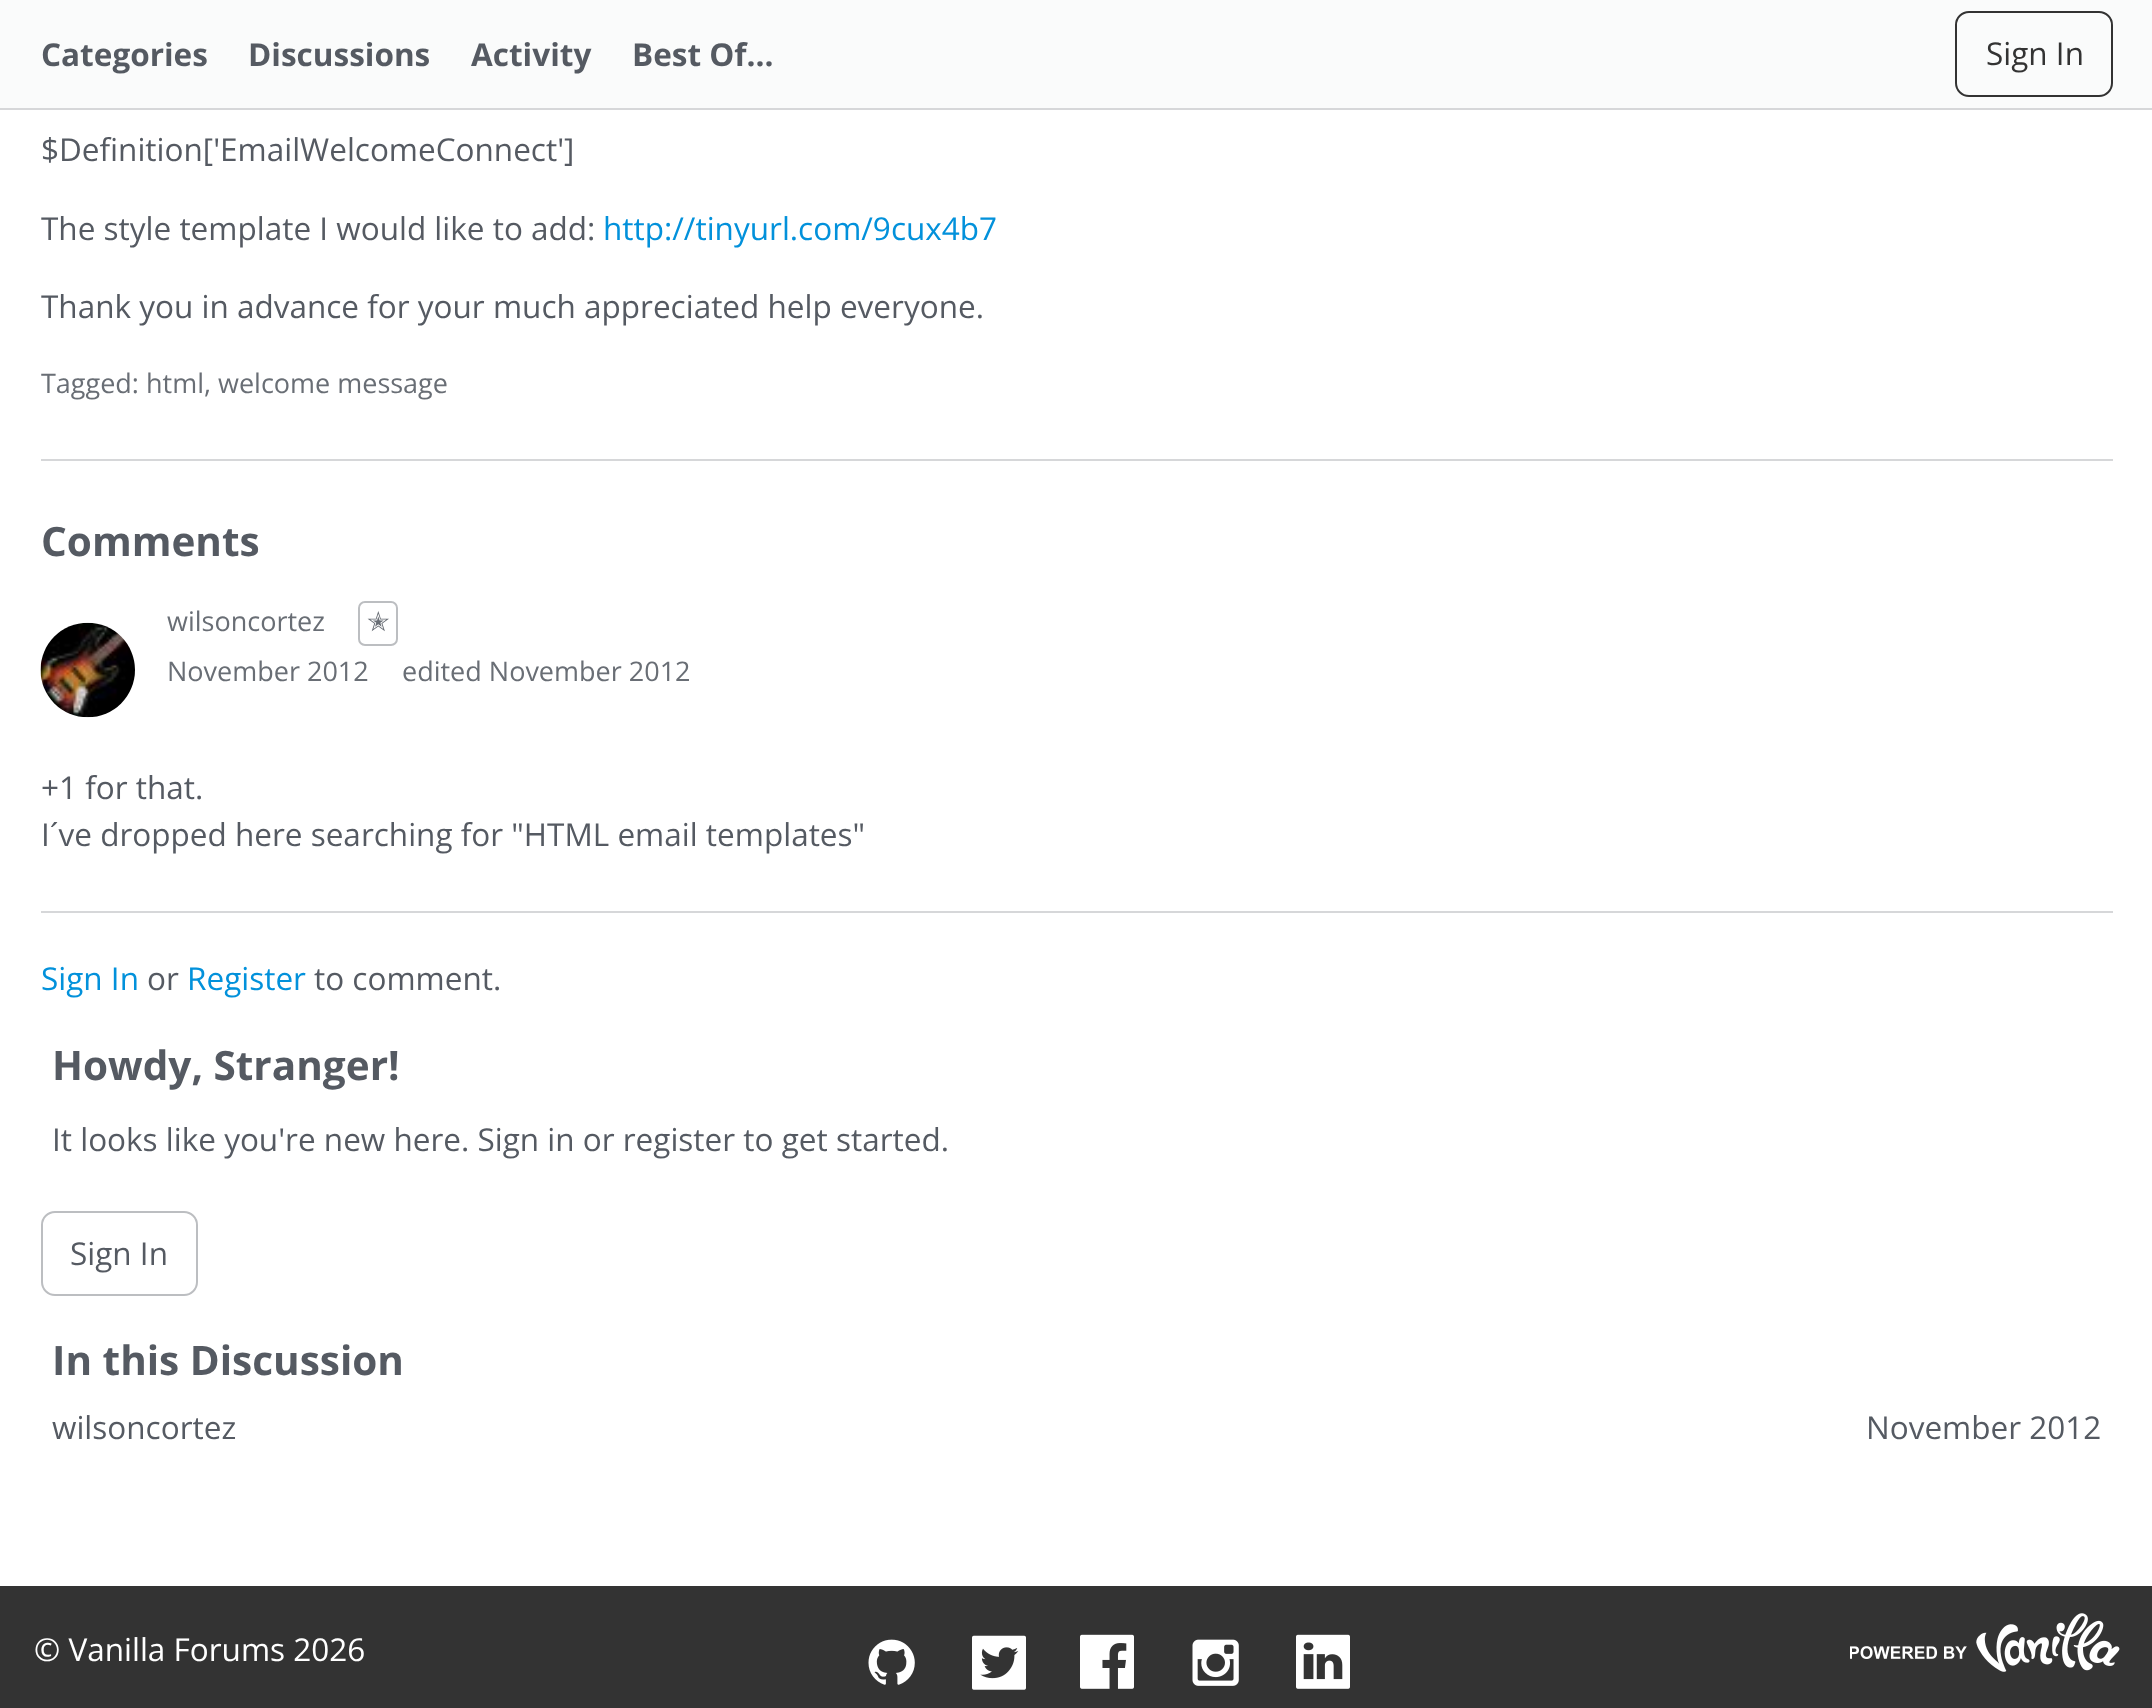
<!DOCTYPE html>
<meta charset="utf-8">
<style>body { margin: 0 } canvas { display: block }</style>
<canvas id="canvas" width="2152" height="1708"></canvas>
<script type="module">
  const canvas = document.getElementById("canvas");
  const g = canvas.getContext("2d");
  g.miterLimit = 4;
  g.fontKerning = "normal";
  function drawText(s, x, y, [font, color]) {
    g.font = font;
    g.fillStyle = color;
    g.fillText(s, x, y);
  }
  function fillBox(x, y, w, h, color) {
    g.fillStyle = color;
    g.fillRect(x, y, w, h);
  }
  async function drawPicture(src, x, y, w, h) {
    const img = new Image();
    img.src = src;
    await img.decode();
    g.drawImage(img, x, y, w, h);
  }

  const s1 = ["bold 31.5px Open Sans", "#555A62"];
  const s2 = ["31.5px Open Sans", "#333333"];
  const s3 = ["31.5px Open Sans", "#555A62"];
  const s4 = ["31.5px Open Sans", "#0291DB"];
  const s5 = ["27px Open Sans", "#696E75"];
  const s6 = ["bold 40.5px Open Sans", "#555A62"];
  const s7 = ["27px DejaVu Sans", "#696E75"];
  const s8 = ["31.5px Open Sans", "#FFFFFF"];

  fillBox(0, 0, 2152, 1708, "#FFFFFF");
  fillBox(0, 0, 2152, 108, "#FAFBFB");
  fillBox(0, 108, 2152, 2, "#D6D7D9");
  drawText("Categories", 41, 66, s1);
  drawText("Discussions", 248, 66, s1);
  drawText("Activity", 471, 66, s1);
  drawText("Best Of...", 632, 66, s1);
  g.beginPath();
  g.roundRect(1956, 12, 156, 84, 13);
  g.strokeStyle = "#333333";
  g.lineWidth = 2;
  g.stroke();
  drawText("Sign In", 1986, 65, s2);
  fillBox(41, 459, 2072, 2, "#D6D7D9");
  drawText("$Definition['EmailWelcomeConnect']", 41, 161, s3);
  drawText("The style template I would like to add:", 41, 240, s3);
  drawText("http://tinyurl.com/9cux4b7", 603, 240, s4);
  drawText("Thank you in advance for your much appreciated help everyone.", 41, 318, s3);
  drawText("Tagged: html, welcome message", 41, 393, s5);
  drawText("Comments", 41, 556, s6);
  fillBox(41, 911, 2072, 2, "#D6D7D9");
  await drawPicture("pic1.png", 40, 622, 95, 96);
  drawText("wilsoncortez", 167, 631, s5);
  g.beginPath();
  g.roundRect(359, 602, 38, 43, 6);
  g.strokeStyle = "#BCBEC1";
  g.stroke();
  drawText("✭", 367, 631, s7);
  drawText("November 2012", 167, 681, s5);
  drawText("edited November 2012", 402, 681, s5);
  drawText("+1 for that.", 41, 799, s3);
  drawText("I´ve dropped here searching for \"HTML email templates\"", 41, 846, s3);
  drawText("Sign In", 41, 990, s4);
  drawText("or", 147, 990, s3);
  drawText("Register", 187, 990, s4);
  drawText("to comment.", 314, 990, s3);
  drawText("Howdy, Stranger!", 52, 1080, s6);
  drawText("It looks like you're new here. Sign in or register to get started.", 52, 1151, s3);
  g.beginPath();
  g.roundRect(42, 1212, 155, 83, 13);
  g.stroke();
  drawText("Sign In", 70, 1265, s3);
  drawText("In this Discussion", 52, 1375, s6);
  drawText("wilsoncortez", 52, 1439, s3);
  drawText("November 2012", 1866, 1439, s3);
  fillBox(0, 1586, 2152, 122, "#333333");
  drawText("© Vanilla Forums 2026", 34, 1661, s8);
  await drawPicture("pic2.png", 868, 1639, 47, 46);
  await drawPicture("pic3.png", 972, 1635, 54, 55);
  await drawPicture("pic4.png", 1080, 1634, 54, 55);
  await drawPicture("pic5.png", 1192, 1639, 47, 47);
  await drawPicture("pic6.png", 1296, 1634, 54, 55);
  await drawPicture("pic7.png", 1850, 1613, 270, 59);
</script>
